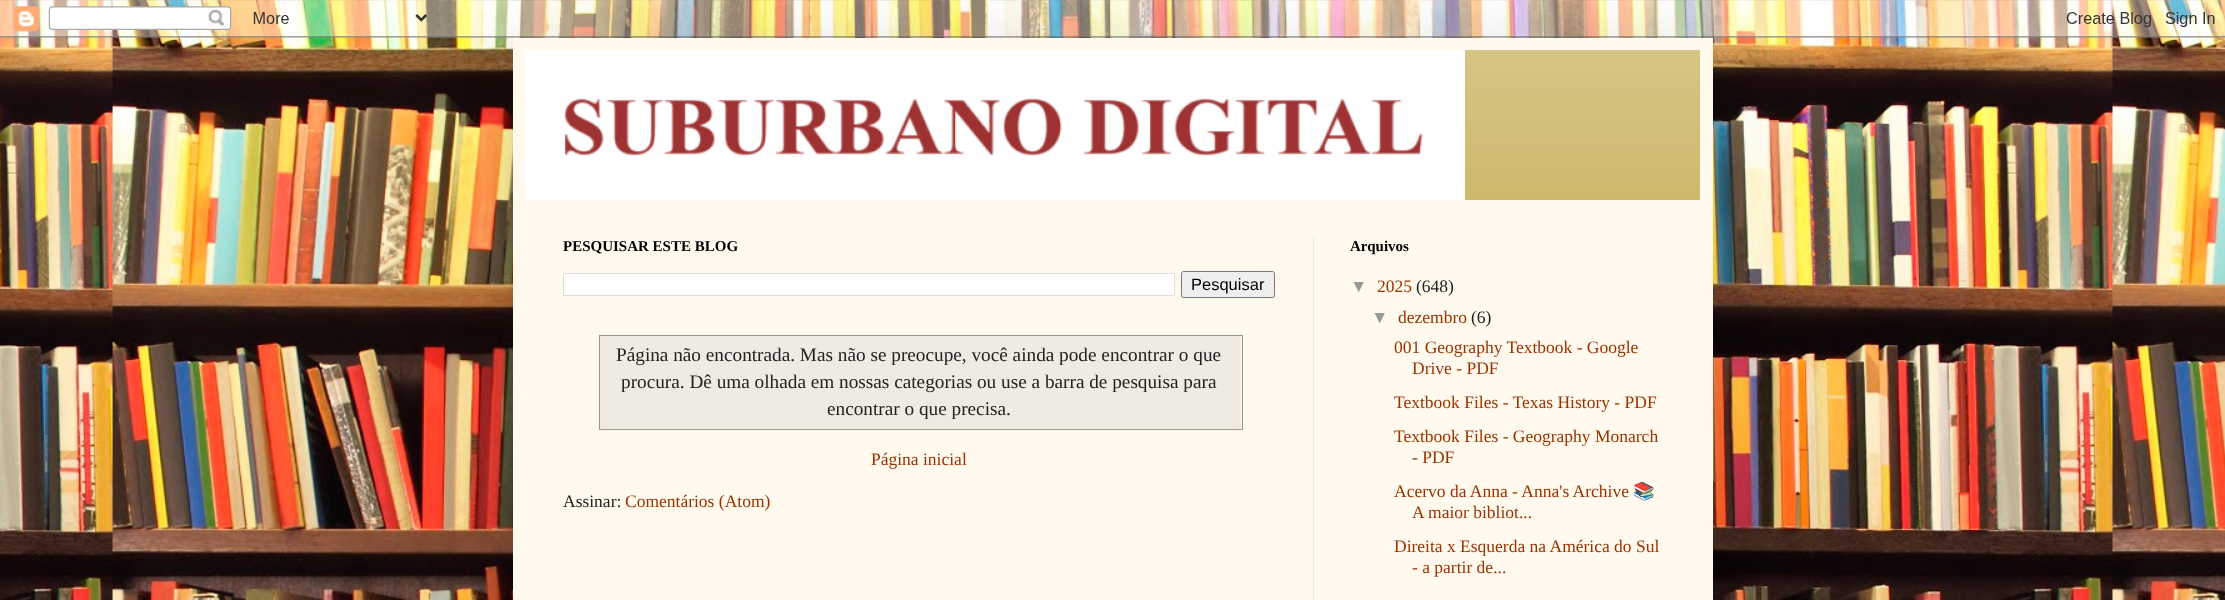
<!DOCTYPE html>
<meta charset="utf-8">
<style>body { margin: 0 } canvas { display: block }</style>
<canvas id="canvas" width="2225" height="600"></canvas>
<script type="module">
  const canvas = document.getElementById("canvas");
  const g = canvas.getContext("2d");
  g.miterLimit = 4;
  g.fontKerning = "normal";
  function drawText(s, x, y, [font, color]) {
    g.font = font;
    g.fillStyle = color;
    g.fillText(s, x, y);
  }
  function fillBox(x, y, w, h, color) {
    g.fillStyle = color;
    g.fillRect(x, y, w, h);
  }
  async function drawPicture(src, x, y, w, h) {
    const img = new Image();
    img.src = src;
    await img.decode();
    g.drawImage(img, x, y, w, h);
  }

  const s1 = ["bold 15px Liberation Serif", "#000000"];
  const s2 = ["16.5px Liberation Sans", "#000000"];
  const s3 = ["19.25px Liberation Serif", "#222222"];
  const s4 = ["17.5px Liberation Serif", "#993300"];
  const s5 = ["17.5px Liberation Serif", "#222222"];
  const s6 = ["17.5px Liberation Sans", "#999999"];
  const s7 = ["17.5px Noto Color Emoji", "#993300"];

  fillBox(0, 0, 2225, 600, "#FFFFFF");
  await drawPicture("pic1.png", 0, 0, 2225, 600);
  g.fillStyle = "rgba(0, 0, 0, 0.15)";
  g.filter = "blur(25px)";
  g.beginPath();
  g.rect(513, 38, 1200, 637);
  g.fill();
  g.filter = "none";
  await drawPicture("pic2.png", 0, 0, 2225, 38);
  fillBox(513, 38, 1200, 562, "#FFF9EE");
  fillBox(1465, 50, 235, 150, "#CCB666");
  await drawPicture("pic3.png", 1465, 50, 235, 150);
  await drawPicture("pic4.png", 525, 50, 940, 150);
  fillBox(1313, 238, 1, 362, "#EEE5DD");
  drawText("PESQUISAR ESTE BLOG", 563, 251, s1);
  g.fillStyle = "#FFFFFF";
  g.beginPath();
  g.rect(563.5, 273.5, 611, 22);
  g.fill();
  g.strokeStyle = "#DDDDDD";
  g.stroke();
  g.fillStyle = "#EFEFEF";
  g.beginPath();
  g.roundRect(1181.5, 271.5, 93, 26, 2);
  g.fill();
  g.strokeStyle = "#767676";
  g.stroke();
  drawText("Pesquisar", 1191, 290, s2);
  g.strokeStyle = "#99958F";
  g.strokeRect(599.5, 335.5, 643, 94);
  fillBox(600, 336, 641, 93, "#EFEBE3");
  drawText("Página não encontrada. Mas não se preocupe, você ainda pode encontrar o que", 616, 361, s3);
  drawText("procura. Dê uma olhada em nossas categorias ou use a barra de pesquisa para", 621, 388, s3);
  drawText("encontrar o que precisa.", 827, 415, s3);
  drawText("Página inicial", 871, 465, s4);
  drawText("Assinar:", 563, 507, s5);
  drawText("Comentários (Atom)", 625, 507, s4);
  drawText("Arquivos", 1350, 251, s1);
  drawText("▼", 1350, 292, s6);
  drawText("2025", 1377, 292, s4);
  drawText("(648)", 1416, 292, s5);
  drawText("▼", 1371, 323, s6);
  drawText("dezembro", 1398, 323, s4);
  drawText("(6)", 1471, 323, s5);
  drawText("001 Geography Textbook - Google", 1394, 353, s4);
  drawText("Drive - PDF", 1412, 374, s4);
  drawText("Textbook Files - Texas History - PDF", 1394, 408, s4);
  drawText("Textbook Files - Geography Monarch", 1394, 442, s4);
  drawText("- PDF", 1412, 463, s4);
  drawText("Acervo da Anna - Anna's Archive", 1394, 497, s4);
  drawText("📚", 1633, 497, s7);
  drawText("A maior bibliot...", 1412, 518, s4);
  drawText("Direita x Esquerda na América do Sul", 1394, 552, s4);
  drawText("- a partir de...", 1412, 573, s4);
</script>
